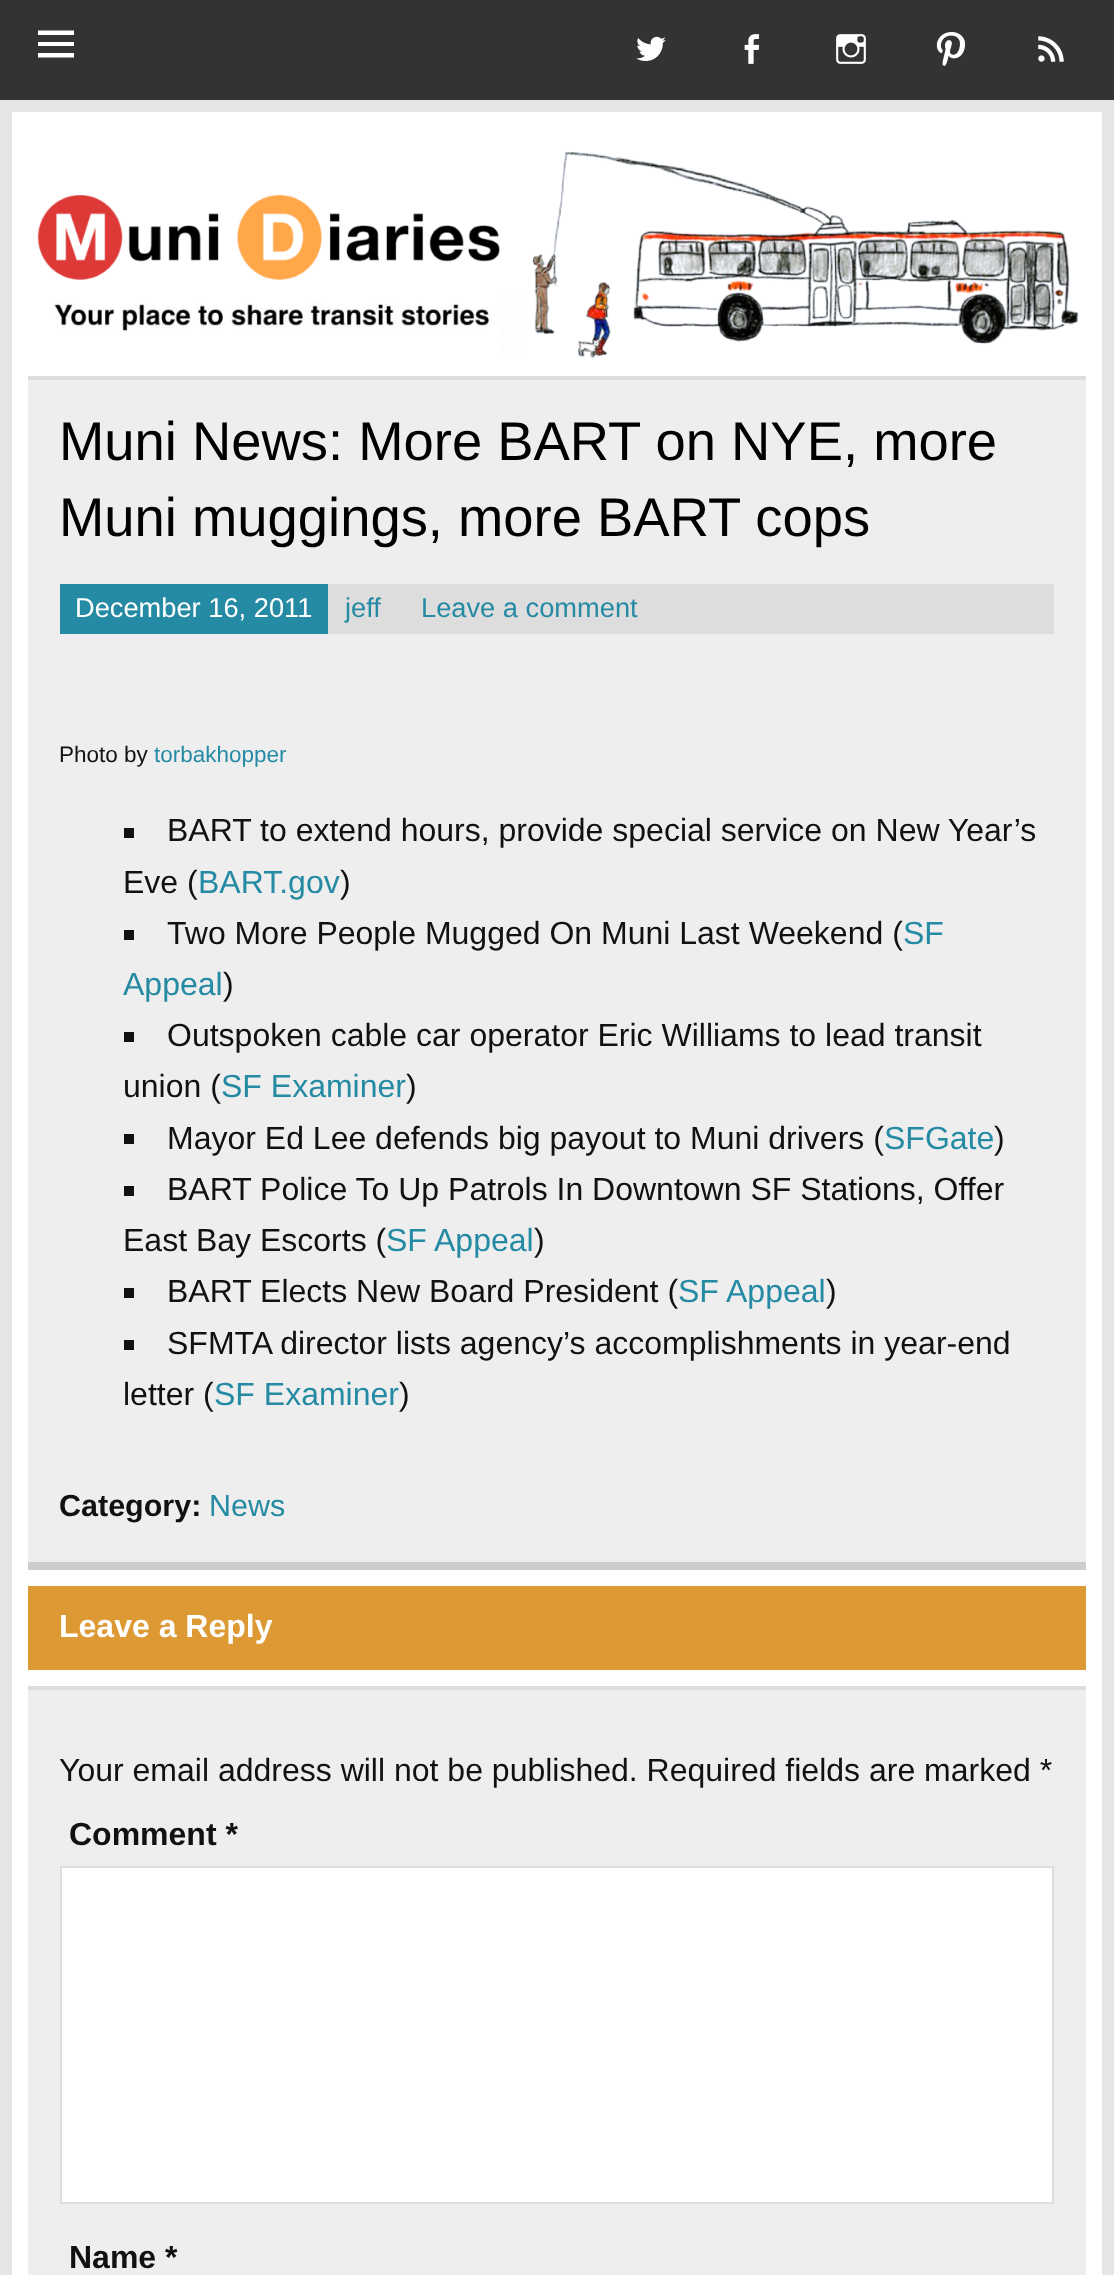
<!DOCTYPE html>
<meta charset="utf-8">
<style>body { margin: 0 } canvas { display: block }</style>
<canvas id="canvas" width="1114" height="2275"></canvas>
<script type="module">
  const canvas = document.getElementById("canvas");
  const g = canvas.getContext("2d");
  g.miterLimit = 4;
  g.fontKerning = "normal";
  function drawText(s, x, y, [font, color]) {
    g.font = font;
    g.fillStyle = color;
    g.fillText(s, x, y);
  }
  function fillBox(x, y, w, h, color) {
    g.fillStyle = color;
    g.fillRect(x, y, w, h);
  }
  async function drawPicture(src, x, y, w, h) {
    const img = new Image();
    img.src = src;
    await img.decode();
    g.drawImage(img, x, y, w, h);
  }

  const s1 = ["54.4px Liberation Sans", "#000000"];
  const s2 = ["27.25px Liberation Sans", "#FFFFFF"];
  const s3 = ["27.25px Liberation Sans", "#258AA3"];
  const s4 = ["22.5px Liberation Sans", "#111111"];
  const s5 = ["22.5px Liberation Sans", "#258AA3"];
  const s6 = ["32px Liberation Sans", "#111111"];
  const s7 = ["32px Liberation Sans", "#258AA3"];
  const s8 = ["bold 30.5px Liberation Sans", "#111111"];
  const s9 = ["30.5px Liberation Sans", "#258AA3"];
  const s10 = ["bold 32px Liberation Sans", "#FFFFFF"];
  const s11 = ["bold 32px Liberation Sans", "#111111"];

  fillBox(0, 0, 1114, 2275, "#E5E5E5");
  fillBox(0, 0, 1114, 100, "#333333");
  g.fillStyle = "#FFFFFF";
  g.beginPath();
  g.moveTo(38, 57.5);
  g.lineTo(38, 53);
  g.lineTo(74, 53);
  g.lineTo(74, 57.5);
  g.closePath();
  g.moveTo(38, 30.5);
  g.lineTo(74, 30.5);
  g.lineTo(74, 35);
  g.lineTo(38, 35);
  g.closePath();
  g.moveTo(38, 46);
  g.lineTo(38, 42);
  g.lineTo(74, 42);
  g.lineTo(74, 46);
  g.closePath();
  g.fill();
  await drawPicture("pic1.png", 636, 36, 30, 25);
  await drawPicture("pic2.png", 744, 34, 16, 30);
  await drawPicture("pic3.png", 836, 34, 30, 30);
  await drawPicture("pic4.png", 936, 32, 30, 34);
  await drawPicture("pic5.png", 1038, 36, 26, 26);
  fillBox(12, 112, 1090, 2163, "#FFFFFF");
  await drawPicture("pic6.png", 37, 151, 1042, 207);
  fillBox(28, 380, 1058, 1182, "#EEEEEE");
  fillBox(28, 376, 1058, 4, "#DDDDDD");
  fillBox(28, 1562, 1058, 8, "#CCCCCC");
  drawText("Muni News: More BART on NYE, more", 59, 460, s1);
  drawText("Muni muggings, more BART cops", 59, 536, s1);
  fillBox(328, 584, 726, 50, "#DDDDDD");
  fillBox(60, 584, 268, 50, "#258AA3");
  drawText("December 16, 2011", 75, 617, s2);
  drawText("jeff", 345, 617, s3);
  drawText("Leave a comment", 421, 617, s3);
  drawText("Photo by", 59, 762, s4);
  drawText("torbakhopper", 154, 762, s5);
  fillBox(124, 828, 10, 10, "#111111");
  drawText("BART to extend hours, provide special service on New Year’s", 167, 841, s6);
  drawText("Eve (", 123, 893, s6);
  drawText("BART.gov", 198, 893, s7);
  drawText(")", 340, 893, s6);
  fillBox(124, 930, 10, 10, "#111111");
  drawText("Two More People Mugged On Muni Last Weekend (", 167, 944, s6);
  drawText("SF", 903, 944, s7);
  drawText("Appeal", 123, 995, s7);
  drawText(")", 223, 995, s6);
  fillBox(124, 1032, 10, 10, "#111111");
  drawText("Outspoken cable car operator Eric Williams to lead transit", 167, 1046, s6);
  drawText("union (", 123, 1097, s6);
  drawText("SF Examiner", 221, 1097, s7);
  drawText(")", 406, 1097, s6);
  fillBox(124, 1134, 10, 10, "#111111");
  drawText("Mayor Ed Lee defends big payout to Muni drivers (", 167, 1149, s6);
  drawText("SFGate", 884, 1149, s7);
  drawText(")", 994, 1149, s6);
  fillBox(124, 1186, 10, 10, "#111111");
  drawText("BART Police To Up Patrols In Downtown SF Stations, Offer", 167, 1200, s6);
  drawText("East Bay Escorts (", 123, 1251, s6);
  drawText("SF Appeal", 386, 1251, s7);
  drawText(")", 534, 1251, s6);
  fillBox(124, 1288, 10, 10, "#111111");
  drawText("BART Elects New Board President (", 167, 1302, s6);
  drawText("SF Appeal", 678, 1302, s7);
  drawText(")", 826, 1302, s6);
  fillBox(124, 1340, 10, 10, "#111111");
  drawText("SFMTA director lists agency’s accomplishments in year-end", 167, 1354, s6);
  drawText("letter (", 123, 1405, s6);
  drawText("SF Examiner", 214, 1405, s7);
  drawText(")", 399, 1405, s6);
  drawText("Category:", 59, 1516, s8);
  drawText("News", 209, 1516, s9);
  fillBox(28, 1586, 1058, 84, "#DD9933");
  drawText("Leave a Reply", 59, 1637, s10);
  fillBox(28, 1690, 1058, 585, "#EEEEEE");
  fillBox(28, 1686, 1058, 4, "#DDDDDD");
  drawText("Your email address will not be published. Required fields are marked *", 59, 1781, s6);
  drawText("Comment *", 69, 1845, s11);
  g.fillStyle = "#FFFFFF";
  g.beginPath();
  g.rect(61, 1867, 992, 336);
  g.fill();
  g.strokeStyle = "#DDDDDD";
  g.lineWidth = 2;
  g.stroke();
  drawText("Name *", 69, 2268, s11);
</script>
